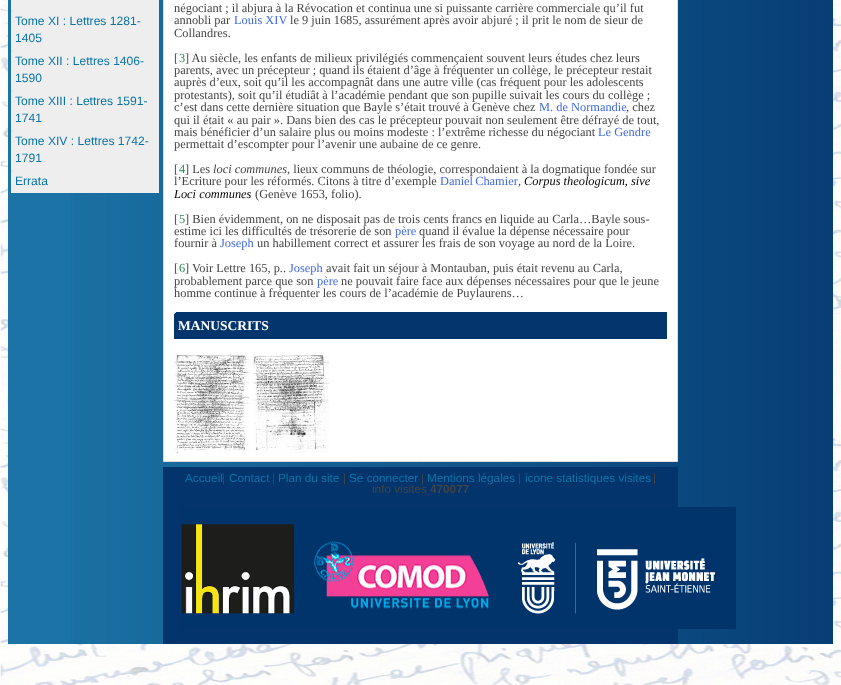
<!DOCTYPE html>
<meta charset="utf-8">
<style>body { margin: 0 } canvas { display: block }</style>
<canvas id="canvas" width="841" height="685"></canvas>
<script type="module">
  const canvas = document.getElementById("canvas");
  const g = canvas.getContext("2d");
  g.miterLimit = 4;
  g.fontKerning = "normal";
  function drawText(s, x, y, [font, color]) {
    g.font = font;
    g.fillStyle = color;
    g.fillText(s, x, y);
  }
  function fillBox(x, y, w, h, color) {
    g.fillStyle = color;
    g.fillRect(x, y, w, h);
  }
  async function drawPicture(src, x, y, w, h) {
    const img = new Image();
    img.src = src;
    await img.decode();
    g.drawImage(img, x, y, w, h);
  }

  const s1 = ["12.1px Liberation Sans", "#0A74A6"];
  const s2 = ["12.4px Liberation Serif", "#444444"];
  const s3 = ["12.4px Liberation Serif", "#4169E1"];
  const s4 = ["12.4px Liberation Serif", "#2E8B57"];
  const s5 = ["italic 12.4px Liberation Serif", "#444444"];
  const s6 = ["italic 12.4px Liberation Serif", "#000000"];
  const s7 = ["bold 13.5px Liberation Serif", "#FFFFFF"];
  const s8 = ["11.75px Liberation Sans", "#0A74A6"];
  const s9 = ["11.75px Liberation Sans", "#444444"];
  const s10 = ["bold 11.75px Liberation Sans", "#444444"];

  fillBox(0, 0, 841, 685, "#FFFFFF");
  await drawPicture("pic1.png", 0, 0, 841, 685);
  fillBox(8, 0, 62, 644, "#1C74A6");
  await drawPicture("pic2.png", 70, 0, 763, 644);
  fillBox(11, 0, 148, 193, "#EEEEEE");
  await drawPicture("pic3.png", 11, 10, 2, 2);
  drawText("Tome XI : Lettres 1281-", 15, 25, s1);
  drawText("1405", 15, 42, s1);
  await drawPicture("pic3.png", 11, 50, 2, 2);
  drawText("Tome XII : Lettres 1406-", 15, 65, s1);
  drawText("1590", 15, 82, s1);
  await drawPicture("pic3.png", 11, 90, 2, 2);
  drawText("Tome XIII : Lettres 1591-", 15, 105, s1);
  drawText("1741", 15, 122, s1);
  await drawPicture("pic3.png", 11, 130, 2, 2);
  drawText("Tome XIV : Lettres 1742-", 15, 145, s1);
  drawText("1791", 15, 162, s1);
  await drawPicture("pic3.png", 11, 170, 2, 2);
  drawText("Errata", 15, 185, s1);
  g.fillStyle = "#FFFFFF";
  g.beginPath();
  g.rect(163.5, -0.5, 514, 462);
  g.fill();
  g.strokeStyle = "#DEDEDE";
  g.stroke();
  drawText("négociant ; il abjura à la Révocation et continua une si puissante carrière commerciale qu’il fut", 174, 12, s2);
  drawText("annobli par", 174, 24, s2);
  drawText("Louis XIV", 234, 24, s3);
  drawText("le 9 juin 1685, assurément après avoir abjuré ; il prit le nom de sieur de", 290, 24, s2);
  drawText("Collandres.", 174, 37, s2);
  drawText("[", 174, 62, s2);
  drawText("3", 179, 62, s4);
  drawText("] Au siècle, les enfants de milieux privilégiés commençaient souvent leurs études chez leurs", 185, 62, s2);
  drawText("parents, avec un précepteur ; quand ils étaient d’âge à fréquenter un collège, le précepteur restait", 174, 74, s2);
  drawText("auprès d’eux, soit qu’il les accompagnât dans une autre ville (cas fréquent pour les adolescents", 174, 86, s2);
  drawText("protestants), soit qu’il étudiât à l’académie pendant que son pupille suivait les cours du collège ;", 174, 99, s2);
  drawText("c’est dans cette dernière situation que Bayle s’était trouvé à Genève chez", 174, 111, s2);
  drawText("M. de Normandie", 539, 111, s3);
  drawText(", chez", 626, 111, s2);
  drawText("qui il était « au pair ». Dans bien des cas le précepteur pouvait non seulement être défrayé de tout,", 174, 124, s2);
  drawText("mais bénéficier d’un salaire plus ou moins modeste : l’extrême richesse du négociant", 174, 136, s2);
  drawText("Le Gendre", 598, 136, s3);
  drawText("permettait d’escompter pour l’avenir une aubaine de ce genre.", 174, 148, s2);
  drawText("[", 174, 173, s2);
  drawText("4", 179, 173, s4);
  drawText("] Les", 185, 173, s2);
  drawText("loci communes", 213, 173, s5);
  drawText(", lieux communs de théologie, correspondaient à la dogmatique fondée sur", 287, 173, s2);
  drawText("l’Ecriture pour les réformés. Citons à titre d’exemple", 174, 185, s2);
  g.wordSpacing = "-1px";
  drawText("Daniel Chamier", 440, 185, s3);
  g.wordSpacing = "0px";
  drawText(",", 518, 185, s2);
  drawText("Corpus theologicum, sive", 524, 185, s6);
  drawText("Loci communes", 174, 198, s6);
  drawText("(Genève 1653, folio).", 255, 198, s2);
  drawText("[", 174, 223, s2);
  drawText("5", 179, 223, s4);
  drawText("] Bien évidemment, on ne disposait pas de trois cents francs en liquide au Carla…Bayle sous-", 185, 223, s2);
  drawText("estime ici les difficultés de trésorerie de son", 174, 235, s2);
  drawText("père", 395, 235, s3);
  drawText("quand il évalue la dépense nécessaire pour", 419, 235, s2);
  drawText("fournir à", 174, 247, s2);
  drawText("Joseph", 220, 247, s3);
  drawText("un habillement correct et assurer les frais de son voyage au nord de la Loire.", 257, 247, s2);
  drawText("[", 174, 272, s2);
  drawText("6", 179, 272, s4);
  drawText("] Voir Lettre 165, p..", 185, 272, s2);
  drawText("Joseph", 289, 272, s3);
  drawText("avait fait un séjour à Montauban, puis était revenu au Carla,", 326, 272, s2);
  drawText("probablement parce que son", 174, 285, s2);
  drawText("père", 317, 285, s3);
  drawText("ne pouvait faire face aux dépenses nécessaires pour que le jeune", 341, 285, s2);
  drawText("homme continue à fréquenter les cours de l’académie de Puylaurens…", 174, 297, s2);
  fillBox(174, 312, 493, 27, "#04356C");
  await drawPicture("pic4.png", 174, 312, 2, 2);
  drawText("MANUSCRITS", 178, 330, s7);
  await drawPicture("pic5.png", 174, 353, 75, 100);
  await drawPicture("pic6.png", 253, 353, 76, 100);
  fillBox(163, 467, 515, 177, "#03346C");
  drawText("Accueil", 185, 482, s8);
  drawText("|", 222, 482, s9);
  drawText("Contact", 229, 482, s8);
  drawText("|", 272, 482, s9);
  drawText("Plan du site", 278, 482, s8);
  drawText("|", 343, 482, s9);
  drawText("Se connecter", 349, 482, s8);
  drawText("|", 421, 482, s9);
  drawText("Mentions légales", 427, 482, s8);
  drawText("|", 518, 482, s9);
  drawText("icone statistiques visites", 525, 482, s8);
  drawText("|", 653, 482, s9);
  drawText("info visites", 372, 493, s9);
  drawText("470077", 430, 493, s10);
  await drawPicture("pic7.png", 181, 507, 555, 122);
</script>
